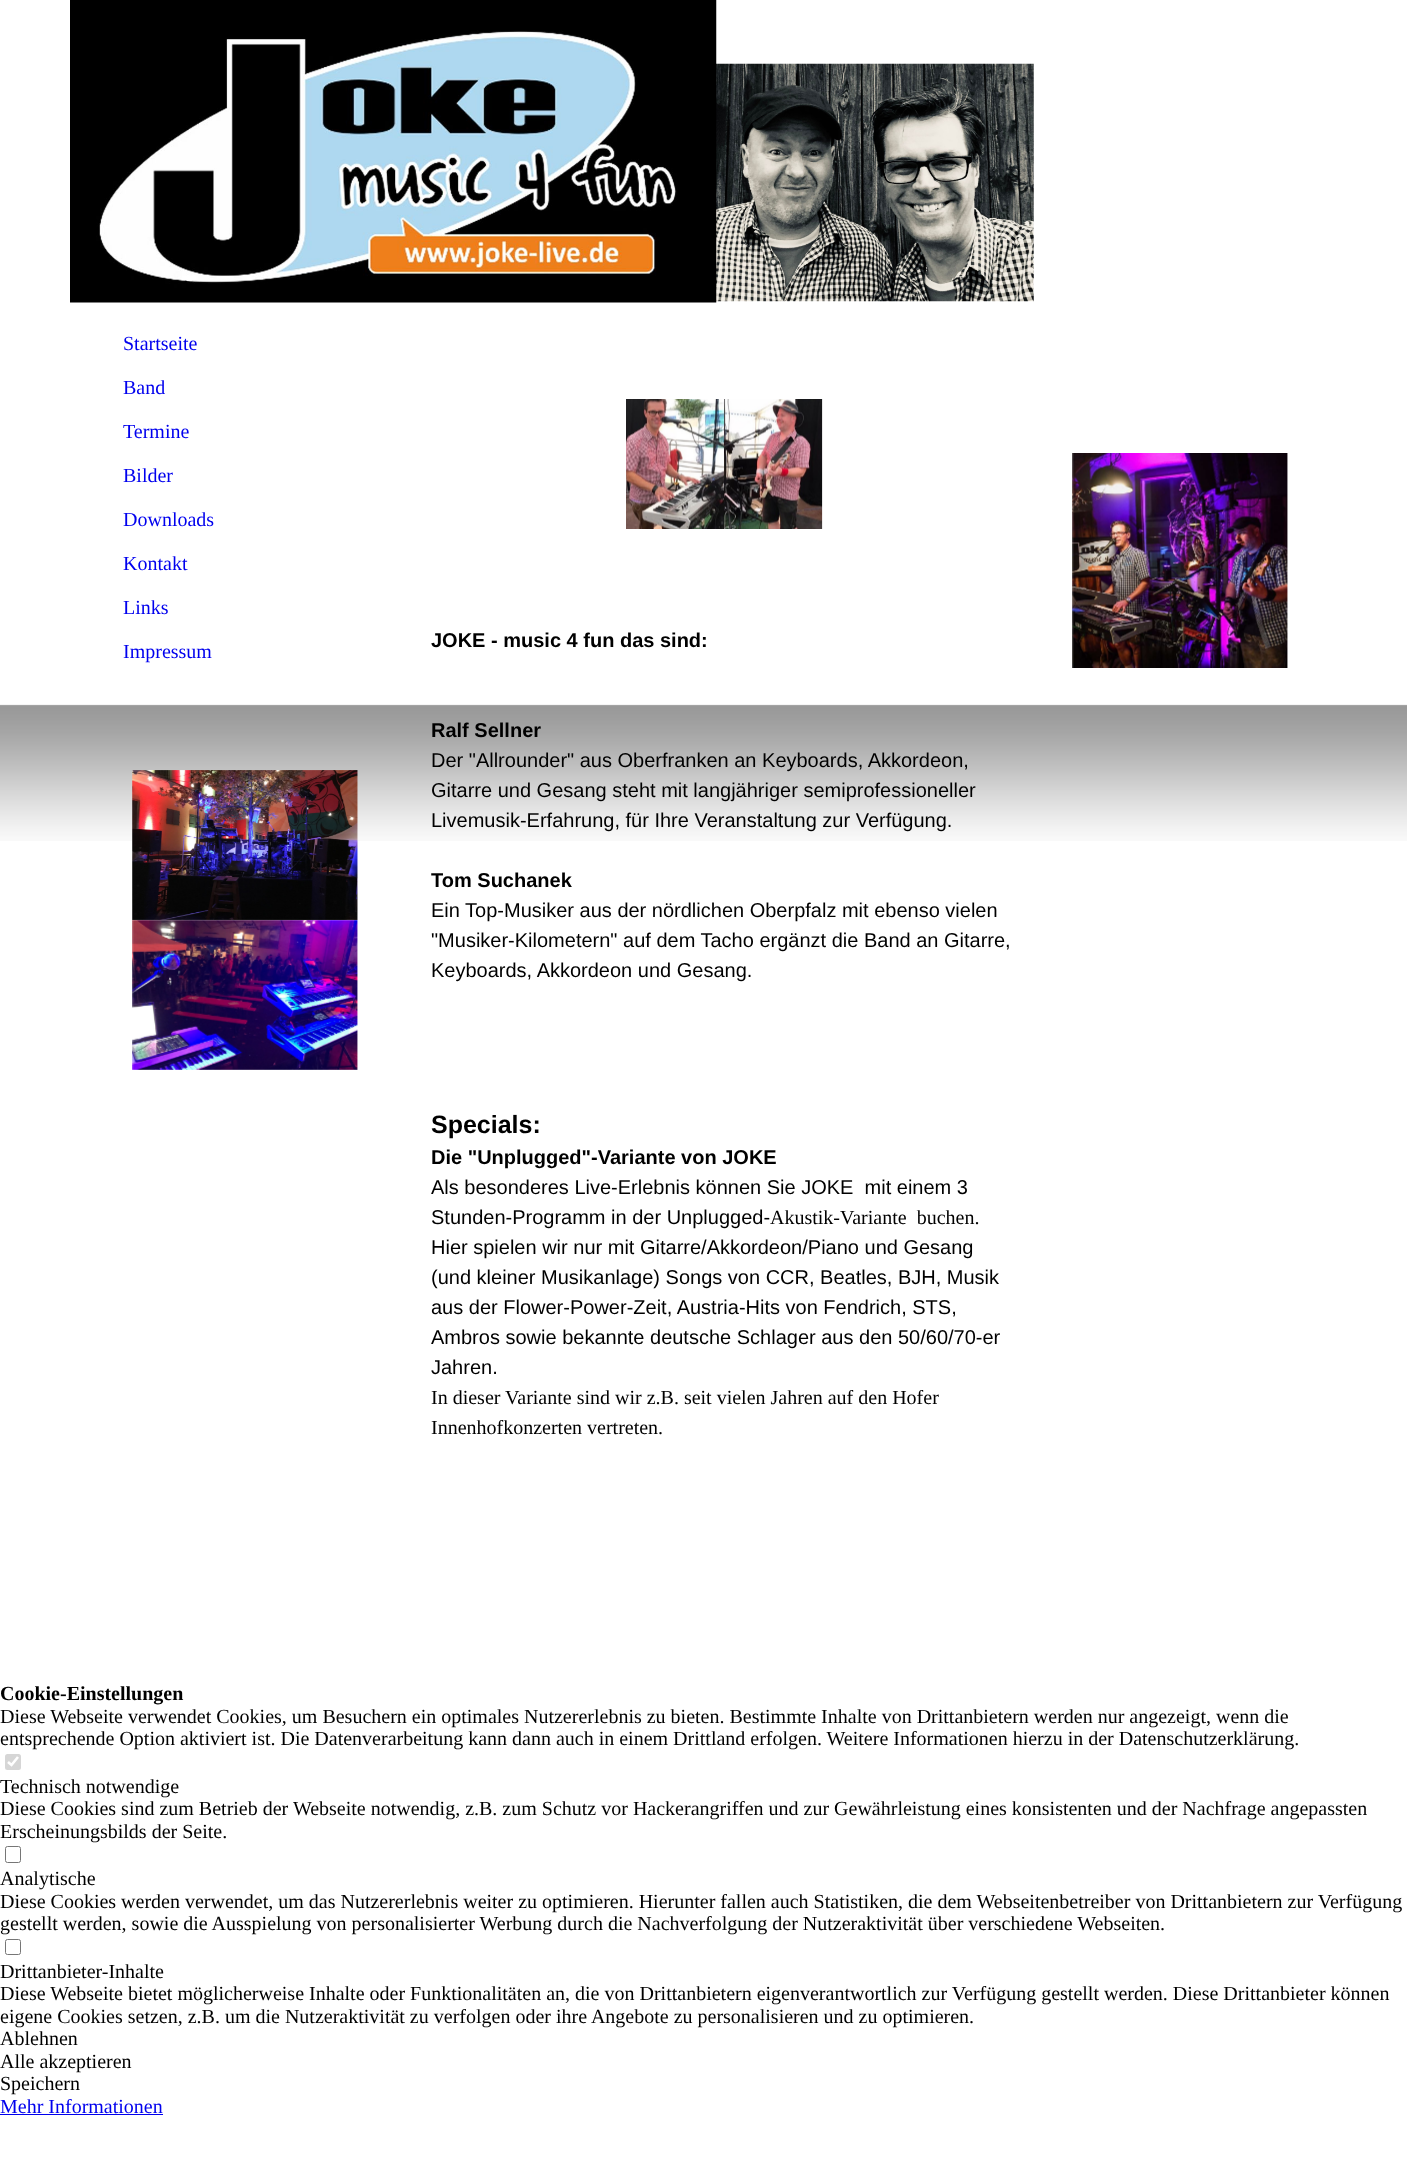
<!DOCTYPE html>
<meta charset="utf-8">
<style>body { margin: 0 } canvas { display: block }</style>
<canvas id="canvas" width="1407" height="2162"></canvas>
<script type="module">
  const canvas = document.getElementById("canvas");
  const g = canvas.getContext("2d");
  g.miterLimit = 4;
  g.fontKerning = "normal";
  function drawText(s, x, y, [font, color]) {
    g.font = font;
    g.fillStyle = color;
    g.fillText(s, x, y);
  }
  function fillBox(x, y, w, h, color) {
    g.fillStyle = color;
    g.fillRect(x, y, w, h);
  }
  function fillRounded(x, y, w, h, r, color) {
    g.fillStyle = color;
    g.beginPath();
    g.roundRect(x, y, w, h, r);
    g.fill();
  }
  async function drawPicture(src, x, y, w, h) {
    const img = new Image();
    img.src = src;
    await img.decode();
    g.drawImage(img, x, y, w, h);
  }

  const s1 = ["20px Liberation Serif", "#0000EE"];
  const s2 = ["bold 20px Liberation Sans", "#000000"];
  const s3 = ["20px Liberation Sans", "#000000"];
  const s4 = ["bold 25px Liberation Sans", "#000000"];
  const s5 = ["20px Liberation Serif", "#000000"];
  const s6 = ["bold 20px Liberation Serif", "#000000"];

  fillBox(0, 0, 1407, 2162, "#FFFFFF");
  await drawPicture("pic1.png", 0, 704, 1407, 137);
  await drawPicture("pic3.png", 716, 63, 318, 239);
  await drawPicture("pic2.png", 70, 0, 647, 303);
  drawText("Startseite", 123, 350, s1);
  drawText("Band", 123, 394, s1);
  drawText("Termine", 123, 438, s1);
  drawText("Bilder", 123, 482, s1);
  drawText("Downloads", 123, 526, s1);
  drawText("Kontakt", 123, 570, s1);
  drawText("Links", 123, 614, s1);
  drawText("Impressum", 123, 658, s1);
  await drawPicture("pic4.png", 132, 770, 226, 150);
  await drawPicture("pic5.png", 132, 920, 226, 150);
  await drawPicture("pic6.png", 626, 399, 197, 130);
  drawText("JOKE - music 4 fun das sind:", 431, 647, s2);
  drawText("Ralf Sellner", 431, 737, s2);
  drawText("Der \"Allrounder\" aus Oberfranken an Keyboards, Akkordeon,", 431, 767, s3);
  drawText("Gitarre und Gesang steht mit langjähriger semiprofessioneller", 431, 797, s3);
  drawText("Livemusik-Erfahrung, für Ihre Veranstaltung zur Verfügung.", 431, 827, s3);
  g.save();
  g.beginPath();
  g.rect(431, 303, 588, 1230);
  g.clip();
  drawText("Tom Suchanek", 431, 887, s2);
  g.restore();
  drawText("Ein Top-Musiker aus der nördlichen Oberpfalz mit ebenso vielen", 431, 917, s3);
  drawText("\"Musiker-Kilometern\" auf dem Tacho ergänzt die Band an Gitarre,", 431, 947, s3);
  drawText("Keyboards, Akkordeon und Gesang.", 431, 977, s3);
  drawText("Specials:", 431, 1133, s4);
  drawText("Die \"Unplugged\"-Variante von JOKE", 431, 1164, s2);
  drawText("Als besonderes Live-Erlebnis können Sie JOKE  mit einem 3", 431, 1194, s3);
  drawText("Stunden-Programm in der Unplugged-", 431, 1224, s3);
  drawText("Akustik-Variante  buchen.", 770, 1224, s5);
  drawText("Hier spielen wir nur mit Gitarre/Akkordeon/Piano und Gesang", 431, 1254, s3);
  drawText("(und kleiner Musikanlage) Songs von CCR, Beatles, BJH, Musik", 431, 1284, s3);
  drawText("aus der Flower-Power-Zeit, Austria-Hits von Fendrich, STS,", 431, 1314, s3);
  drawText("Ambros sowie bekannte deutsche Schlager aus den 50/60/70-er", 431, 1344, s3);
  drawText("Jahren.", 431, 1374, s3);
  drawText("In dieser Variante sind wir z.B. seit vielen Jahren auf den Hofer", 431, 1404, s5);
  drawText("Innenhofkonzerten vertreten.", 431, 1434, s5);
  await drawPicture("pic7.png", 1072, 453, 216, 215);
  drawText("Cookie-Einstellungen", 0, 1700, s6);
  drawText("Diese Webseite verwendet Cookies, um Besuchern ein optimales Nutzererlebnis zu bieten. Bestimmte Inhalte von Drittanbietern werden nur angezeigt, wenn die", 0, 1723, s5);
  drawText("entsprechende Option aktiviert ist. Die Datenverarbeitung kann dann auch in einem Drittland erfolgen. Weitere Informationen hierzu in der Datenschutzerklärung.", 0, 1745, s5);
  fillRounded(5, 1754, 16, 16, 2.5, "#D6D6D6");
  g.beginPath();
  g.moveTo(8, 1762);
  g.lineTo(11.5, 1765);
  g.lineTo(18, 1757);
  g.strokeStyle = "#FFFFFF";
  g.lineWidth = 2.6;
  g.stroke();
  drawText("Technisch notwendige", 0, 1793, s5);
  drawText("Diese Cookies sind zum Betrieb der Webseite notwendig, z.B. zum Schutz vor Hackerangriffen und zur Gewährleistung eines konsistenten und der Nachfrage angepassten", 0, 1815, s5);
  drawText("Erscheinungsbilds der Seite.", 0, 1838, s5);
  g.beginPath();
  g.roundRect(5.5, 1846.5, 15, 16, 2);
  g.strokeStyle = "#767676";
  g.lineWidth = 1;
  g.stroke();
  drawText("Analytische", 0, 1885, s5);
  drawText("Diese Cookies werden verwendet, um das Nutzererlebnis weiter zu optimieren. Hierunter fallen auch Statistiken, die dem Webseitenbetreiber von Drittanbietern zur Verfügung", 0, 1908, s5);
  drawText("gestellt werden, sowie die Ausspielung von personalisierter Werbung durch die Nachverfolgung der Nutzeraktivität über verschiedene Webseiten.", 0, 1930, s5);
  g.beginPath();
  g.roundRect(5.5, 1939.5, 15, 15, 2);
  g.stroke();
  drawText("Drittanbieter-Inhalte", 0, 1978, s5);
  drawText("Diese Webseite bietet möglicherweise Inhalte oder Funktionalitäten an, die von Drittanbietern eigenverantwortlich zur Verfügung gestellt werden. Diese Drittanbieter können", 0, 2000, s5);
  drawText("eigene Cookies setzen, z.B. um die Nutzeraktivität zu verfolgen oder ihre Angebote zu personalisieren und zu optimieren.", 0, 2023, s5);
  drawText("Ablehnen", 0, 2045, s5);
  drawText("Alle akzeptieren", 0, 2068, s5);
  drawText("Speichern", 0, 2090, s5);
  drawText("Mehr Informationen", 0, 2113, s1);
  fillBox(0, 2114, 163, 1, "#0000EE");
</script>
